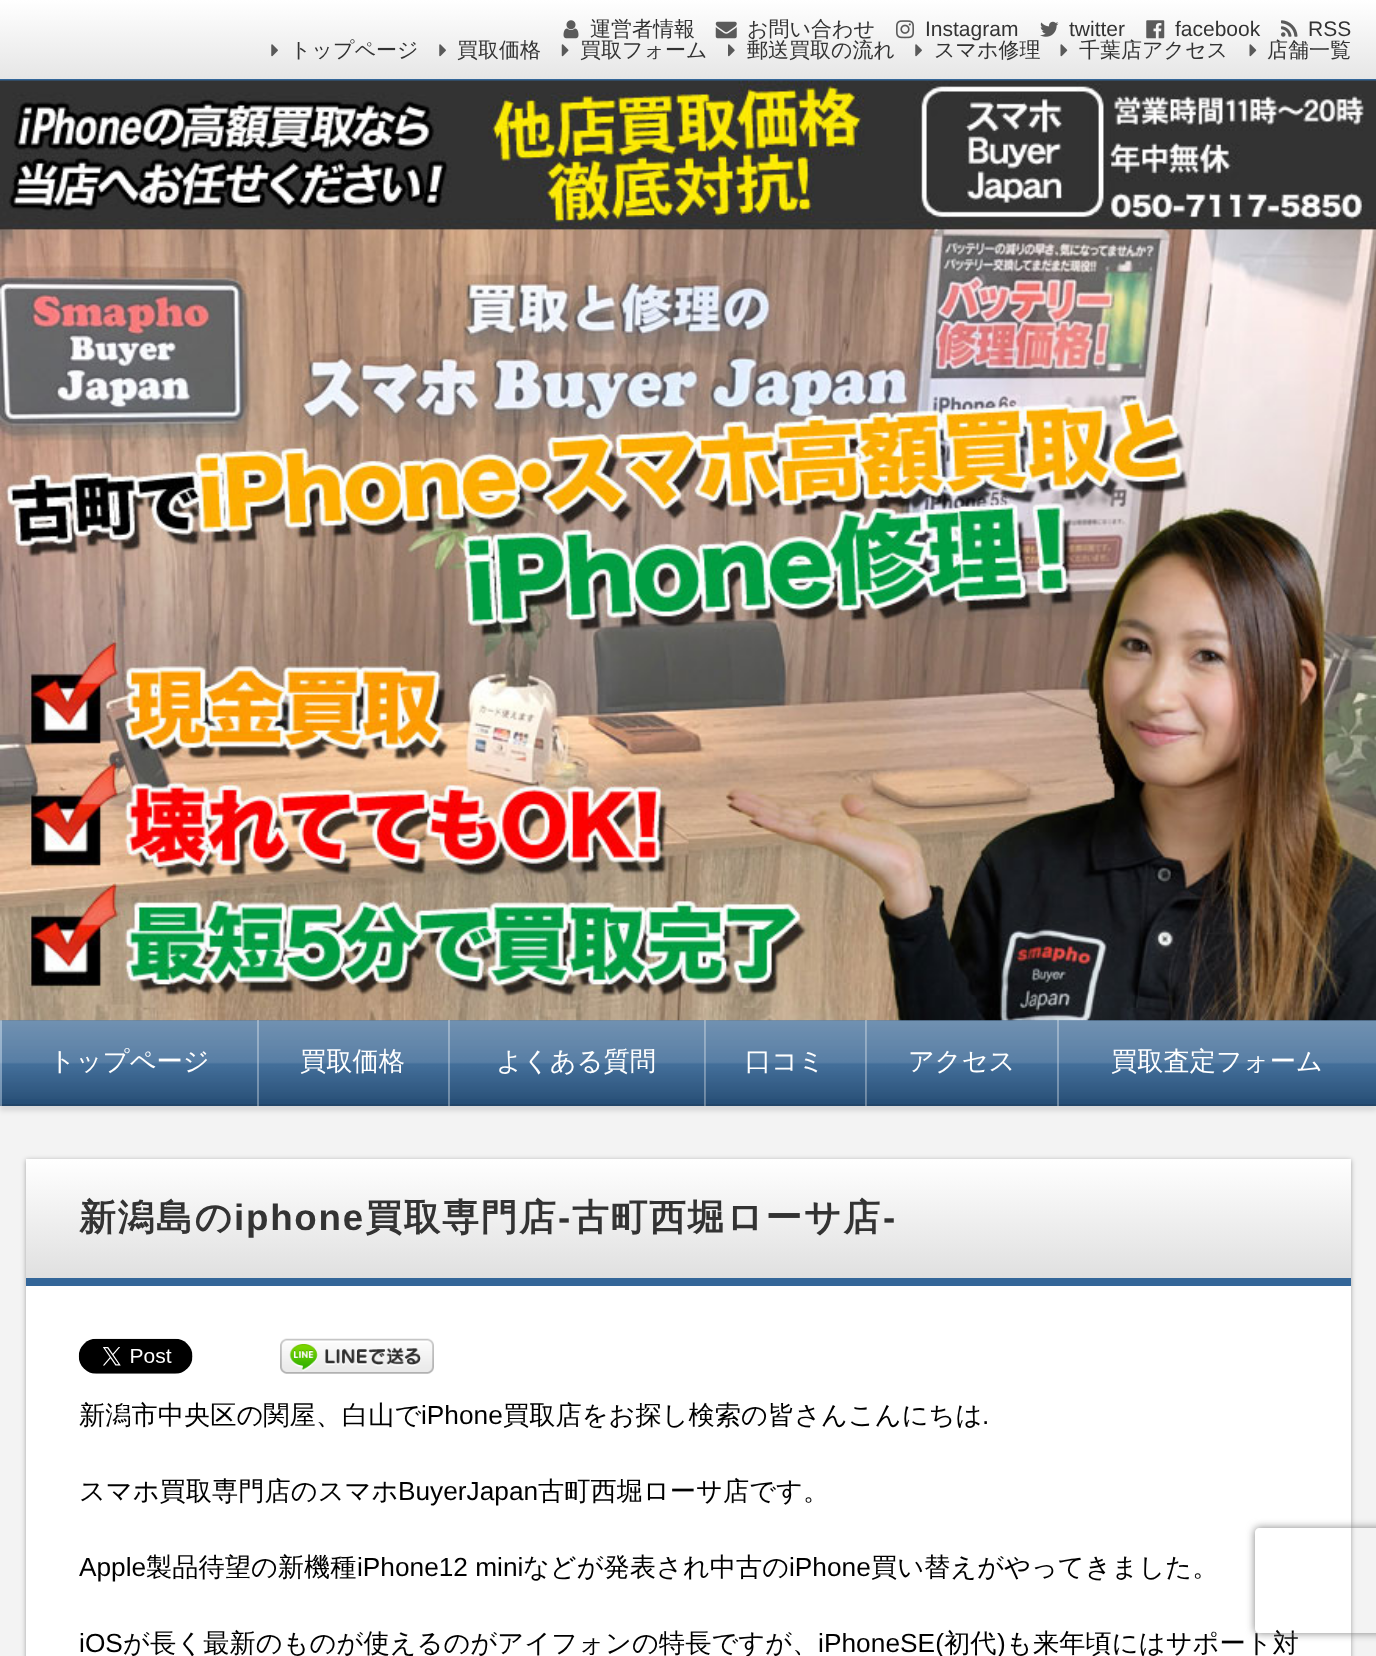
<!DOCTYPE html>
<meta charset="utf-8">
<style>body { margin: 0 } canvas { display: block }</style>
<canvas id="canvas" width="1376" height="1656"></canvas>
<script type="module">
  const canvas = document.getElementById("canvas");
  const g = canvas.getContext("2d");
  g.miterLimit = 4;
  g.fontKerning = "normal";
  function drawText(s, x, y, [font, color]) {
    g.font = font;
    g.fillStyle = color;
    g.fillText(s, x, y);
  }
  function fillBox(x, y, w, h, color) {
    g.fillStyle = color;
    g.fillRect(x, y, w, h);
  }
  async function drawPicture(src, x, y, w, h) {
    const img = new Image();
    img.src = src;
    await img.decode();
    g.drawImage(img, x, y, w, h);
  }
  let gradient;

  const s1 = ["500 21px WenQuanYi Zen Hei", "#333333"];
  const s2 = ["21px Liberation Sans", "#333333"];
  const s3 = ["500 26.25px WenQuanYi Zen Hei", "#FFFFFF"];
  const s4 = ["bold 36.75px WenQuanYi Zen Hei", "#333333"];
  const s5 = ["bold 36.75px Liberation Sans", "#333333"];
  const s6 = ["500 26.25px WenQuanYi Zen Hei", "#000000"];
  const s7 = ["26.25px Liberation Sans", "#000000"];

  fillBox(0, 0, 1376, 1656, "#F3F3F3");
  gradient = g.createLinearGradient(689, 0, 689, 79);
  gradient.addColorStop(0, "#FFFFFF");
  gradient.addColorStop(1, "#E6E6E6");
  g.fillStyle = gradient;
  g.fillRect(0, 0, 1376, 79);
  fillBox(0, 79, 1376, 2, "#336699");
  await drawPicture("pic1.png", 563, 20, 16, 19);
  drawText("運営者情報", 590, 36, s1);
  await drawPicture("pic2.png", 715, 21, 22, 18);
  drawText("お問い合わせ", 747, 36, s1);
  await drawPicture("pic3.png", 896, 20, 18, 19);
  drawText("Instagram", 925, 36, s2);
  await drawPicture("pic4.png", 1040, 21, 19, 16);
  drawText("twitter", 1069, 36, s2);
  await drawPicture("pic5.png", 1146, 20, 19, 19);
  drawText("facebook", 1175, 36, s2);
  await drawPicture("pic6.png", 1281, 20, 17, 17);
  drawText("RSS", 1308, 36, s2);
  await drawPicture("pic7.png", 271, 44, 7, 13);
  drawText("トップページ", 290, 57, s1);
  await drawPicture("pic7.png", 439, 44, 7, 13);
  drawText("買取価格", 457, 57, s1);
  await drawPicture("pic8.png", 561, 44, 8, 13);
  drawText("買取フォーム", 580, 57, s1);
  await drawPicture("pic9.png", 728, 44, 7, 13);
  drawText("郵送買取の流れ", 747, 57, s1);
  await drawPicture("pic7.png", 915, 44, 7, 13);
  drawText("スマホ修理", 934, 57, s1);
  await drawPicture("pic10.png", 1060, 44, 8, 13);
  drawText("千葉店アクセス", 1079, 57, s1);
  await drawPicture("pic10.png", 1249, 44, 8, 13);
  drawText("店舗一覧", 1267, 57, s1);
  g.fillStyle = "rgba(0, 0, 0, 0.1)";
  g.filter = "blur(2.5px)";
  g.beginPath();
  g.rect(0, 1026, 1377, 85);
  g.fill();
  g.filter = "none";
  fillBox(0, 1020, 1376, 84, "#336699");
  await drawPicture("pic12.png", 0, 1020, 1376, 84);
  await drawPicture("pic13.png", 0, 1020, 1376, 79);
  fillBox(0, 1104, 1376, 2, "#274E75");
  fillBox(0, 1020, 2, 86, "rgba(255, 255, 255, 0.33)");
  await drawPicture("pic11.png", 0, 80, 1376, 941);
  gradient = g.createLinearGradient(130, 1020, 130, 1106);
  gradient.addColorStop(0.5, "rgba(0, 0, 0, 0.05)");
  gradient.addColorStop(1, "rgba(0, 0, 0, 0.1)");
  g.fillStyle = gradient;
  g.fillRect(2, 1020, 257, 86);
  fillBox(257, 1020, 2, 86, "rgba(255, 255, 255, 0.33)");
  drawText("トップページ", 49, 1070, s3);
  gradient = g.createLinearGradient(354, 1020, 354, 1106);
  gradient.addColorStop(0.5, "rgba(0, 0, 0, 0.05)");
  gradient.addColorStop(1, "rgba(0, 0, 0, 0.1)");
  g.fillStyle = gradient;
  g.fillRect(259, 1020, 191, 86);
  fillBox(448, 1020, 2, 86, "rgba(255, 255, 255, 0.33)");
  drawText("買取価格", 300, 1070, s3);
  gradient = g.createLinearGradient(577, 1020, 577, 1106);
  gradient.addColorStop(0.5, "rgba(0, 0, 0, 0.05)");
  gradient.addColorStop(1, "rgba(0, 0, 0, 0.1)");
  g.fillStyle = gradient;
  g.fillRect(450, 1020, 255, 86);
  fillBox(704, 1020, 2, 86, "rgba(255, 255, 255, 0.33)");
  drawText("よくある質問", 496, 1070, s3);
  gradient = g.createLinearGradient(785, 1020, 785, 1106);
  gradient.addColorStop(0.5, "rgba(0, 0, 0, 0.05)");
  gradient.addColorStop(1, "rgba(0, 0, 0, 0.1)");
  g.fillStyle = gradient;
  g.fillRect(705, 1020, 161, 86);
  fillBox(865, 1020, 2, 86, "rgba(255, 255, 255, 0.33)");
  drawText("口コミ", 745, 1070, s3);
  gradient = g.createLinearGradient(962, 1020, 962, 1106);
  gradient.addColorStop(0.5, "rgba(0, 0, 0, 0.05)");
  gradient.addColorStop(1, "rgba(0, 0, 0, 0.1)");
  g.fillStyle = gradient;
  g.fillRect(866, 1020, 193, 86);
  fillBox(1057, 1020, 2, 86, "rgba(255, 255, 255, 0.33)");
  drawText("アクセス", 908, 1070, s3);
  gradient = g.createLinearGradient(1217, 1020, 1217, 1106);
  gradient.addColorStop(0.5, "rgba(0, 0, 0, 0.05)");
  gradient.addColorStop(1, "rgba(0, 0, 0, 0.1)");
  g.fillStyle = gradient;
  g.fillRect(1059, 1020, 317, 86);
  drawText("買取査定フォーム", 1111, 1070, s3);
  g.fillStyle = "rgba(0, 0, 0, 0.33)";
  g.filter = "blur(2.5px)";
  g.beginPath();
  g.rect(26, 1160, 1325, 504);
  g.fill();
  g.filter = "none";
  fillBox(26, 1286, 1325, 370, "#FFFFFF");
  gradient = g.createLinearGradient(689, 1159, 689, 1278);
  gradient.addColorStop(0, "#FFFFFF");
  gradient.addColorStop(1, "#E0E0E0");
  g.fillStyle = gradient;
  g.fillRect(26, 1159, 1325, 119);
  fillBox(26, 1278, 1325, 8, "#336699");
  g.letterSpacing = "1.75px";
  drawText("新潟島の", 79, 1230, s4);
  drawText("iphone", 234, 1230, s5);
  drawText("買取専門店", 365, 1230, s4);
  drawText("-", 558, 1230, s5);
  drawText("古町西堀ローサ店", 572, 1230, s4);
  drawText("-", 883, 1230, s5);
  await drawPicture("pic14.png", 78, 1338, 115, 36);
  await drawPicture("pic15.png", 280, 1338, 154, 36);
  g.letterSpacing = "0px";
  drawText("新潟市中央区の関屋、白山で", 79, 1424, s6);
  drawText("iPhone", 421, 1424, s7);
  drawText("買取店をお探し検索の皆さんこんにちは", 503, 1424, s6);
  drawText(".", 982, 1424, s7);
  drawText("スマホ買取専門店のスマホ", 79, 1500, s6);
  drawText("BuyerJapan", 398, 1500, s7);
  drawText("古町西堀ローサ店です。", 538, 1500, s6);
  drawText("Apple", 79, 1576, s7);
  drawText("製品待望の新機種", 146, 1576, s6);
  drawText("iPhone12 mini", 357, 1576, s7);
  drawText("などが発表され中古の", 523, 1576, s6);
  drawText("iPhone", 789, 1576, s7);
  drawText("買い替えがやってきました。", 871, 1576, s6);
  g.letterSpacing = "0.05px";
  drawText("iOS", 79, 1652, s7);
  drawText("が長く最新のものが使えるのがアイフォンの特長ですが、", 123, 1652, s6);
  drawText("iPhoneSE(", 818, 1652, s7);
  drawText("初代", 944, 1652, s6);
  drawText(")", 997, 1652, s7);
  drawText("も来年頃にはサポート対", 1006, 1652, s6);
  g.save();
  g.beginPath();
  g.moveTo(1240, 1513);
  g.lineTo(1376, 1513);
  g.lineTo(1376, 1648);
  g.lineTo(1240, 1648);
  g.closePath();
  g.moveTo(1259, 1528);
  g.lineTo(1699, 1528);
  g.bezierCurveTo(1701, 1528, 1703, 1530, 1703, 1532);
  g.lineTo(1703, 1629);
  g.bezierCurveTo(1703, 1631, 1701, 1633, 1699, 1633);
  g.lineTo(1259, 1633);
  g.bezierCurveTo(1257, 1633, 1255, 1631, 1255, 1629);
  g.lineTo(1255, 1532);
  g.bezierCurveTo(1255, 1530, 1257, 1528, 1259, 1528);
  g.closePath();
  g.clip("evenodd");
  g.fillStyle = "#808080";
  g.filter = "blur(4.5px)";
  g.beginPath();
  g.roundRect(1255, 1528, 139, 105, 4);
  g.fill();
  g.filter = "none";
  g.restore();
</script>
